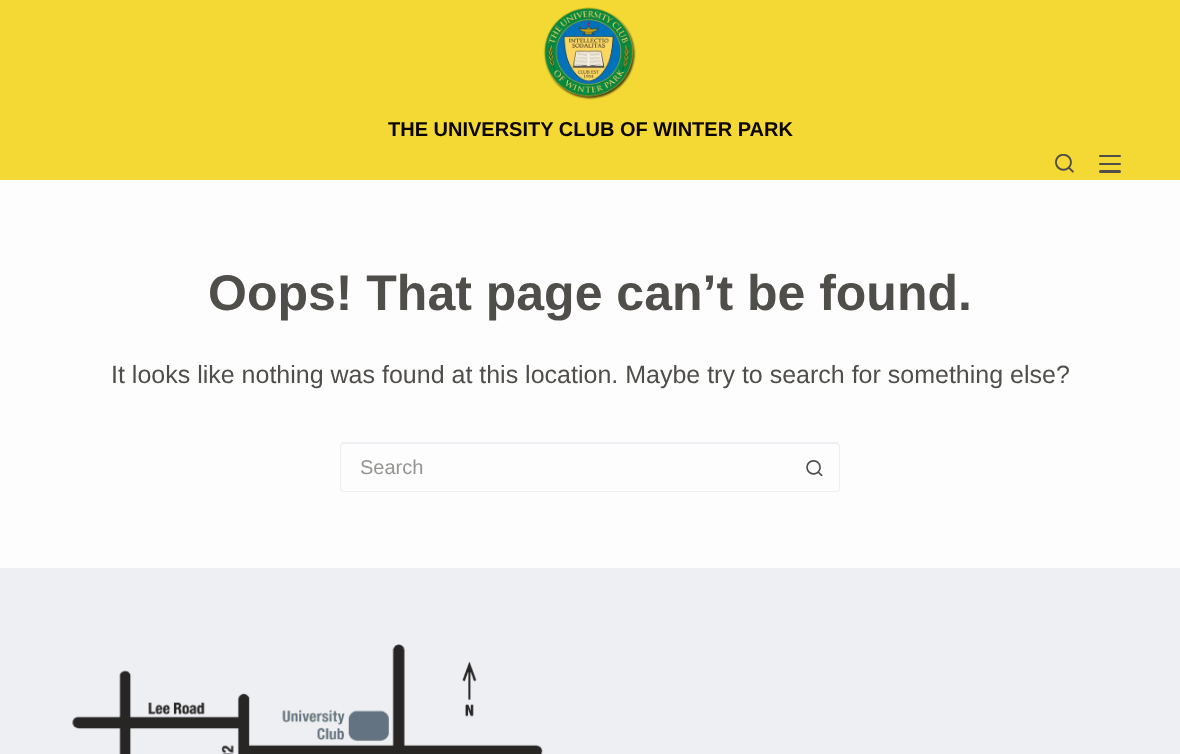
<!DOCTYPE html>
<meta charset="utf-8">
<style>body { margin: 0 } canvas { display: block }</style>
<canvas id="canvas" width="1180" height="754"></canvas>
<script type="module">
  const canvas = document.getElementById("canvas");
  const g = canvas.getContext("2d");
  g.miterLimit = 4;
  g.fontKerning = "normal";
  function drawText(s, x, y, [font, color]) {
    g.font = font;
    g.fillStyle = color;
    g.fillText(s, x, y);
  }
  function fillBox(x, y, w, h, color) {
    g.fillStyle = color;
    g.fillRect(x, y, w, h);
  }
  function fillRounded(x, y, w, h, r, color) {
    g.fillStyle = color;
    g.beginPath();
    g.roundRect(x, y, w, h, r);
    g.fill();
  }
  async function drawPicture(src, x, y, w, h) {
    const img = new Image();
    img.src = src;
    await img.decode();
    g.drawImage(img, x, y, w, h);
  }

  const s1 = ["bold 20px Liberation Sans", "#0A0500"];
  const s2 = ["bold 50px Liberation Sans", "#504E4A"];
  const s3 = ["25px Liberation Sans", "#504E4A"];
  const s4 = ["20px Liberation Sans", "#959492"];

  fillBox(0, 0, 1180, 754, "#FDFDFD");
  fillBox(0, 0, 1180, 180, "#F4D934");
  await drawPicture("pic1.png", 543, 7, 93, 93);
  drawText("THE UNIVERSITY CLUB OF WINTER PARK", 388, 136, s1);
  await drawPicture("pic2.png", 1055, 154, 19, 19);
  fillRounded(1099, 155, 22, 2, 1, "#504E4A");
  fillRounded(1099, 163, 22, 2, 1, "#504E4A");
  fillRounded(1099, 170, 22, 3, 1.5, "#504E4A");
  drawText("Oops! That page can’t be found.", 208, 310, s2);
  drawText("It looks like nothing was found at this location. Maybe try to search for something else?", 111, 383, s3);
  g.fillStyle = "#EDEFF2";
  g.beginPath();
  g.moveTo(344, 442);
  g.lineTo(790, 442);
  g.lineTo(790, 492);
  g.lineTo(344, 492);
  g.bezierCurveTo(342, 492, 340, 491, 340, 489);
  g.lineTo(340, 446);
  g.bezierCurveTo(340, 444, 342, 442, 344, 442);
  g.closePath();
  g.moveTo(344, 444);
  g.lineTo(790, 444);
  g.lineTo(790, 491);
  g.lineTo(344, 491);
  g.bezierCurveTo(342, 491, 341, 490, 341, 489);
  g.lineTo(341, 446);
  g.bezierCurveTo(341, 445, 342, 444, 344, 444);
  g.closePath();
  g.fill("evenodd");
  drawText("Search", 360, 474, s4);
  g.fillStyle = "#EDEFF2";
  g.beginPath();
  g.moveTo(790, 442);
  g.lineTo(836, 442);
  g.bezierCurveTo(838, 442, 840, 444, 840, 446);
  g.lineTo(840, 489);
  g.bezierCurveTo(840, 491, 838, 492, 836, 492);
  g.lineTo(790, 492);
  g.closePath();
  g.moveTo(790, 444);
  g.lineTo(836, 444);
  g.bezierCurveTo(838, 444, 839, 445, 839, 446);
  g.lineTo(839, 489);
  g.bezierCurveTo(839, 490, 838, 491, 836, 491);
  g.lineTo(790, 491);
  g.closePath();
  g.fill("evenodd");
  await drawPicture("pic3.png", 806, 460, 17, 16);
  fillBox(0, 568, 1180, 186, "#EDEFF2");
  await drawPicture("pic4.png", 72, 644, 471, 110);
</script>
